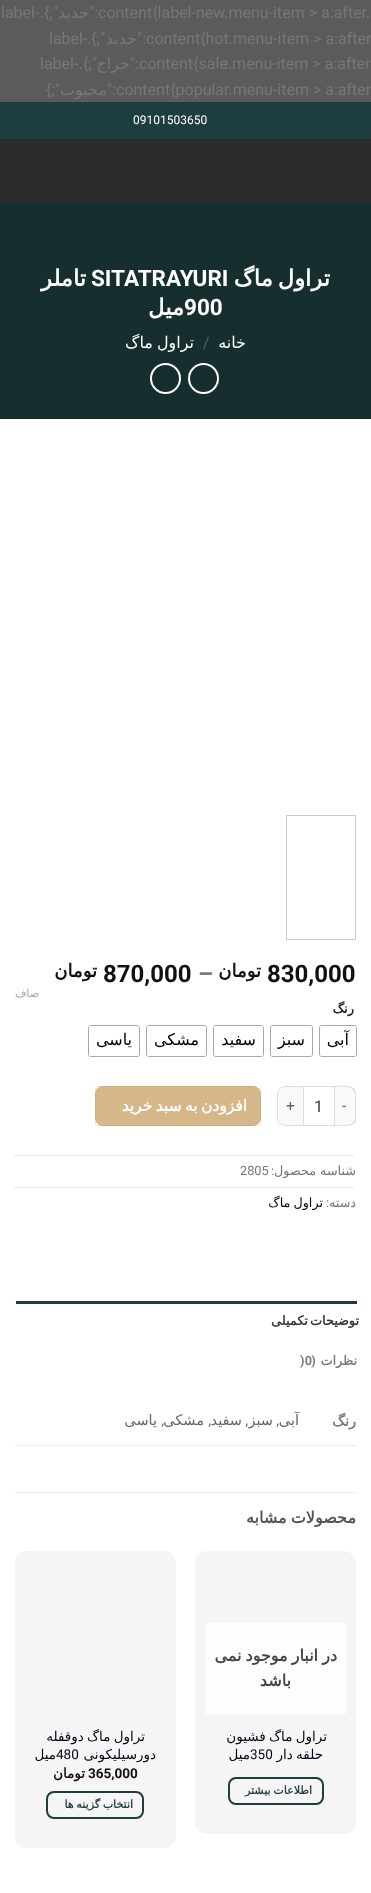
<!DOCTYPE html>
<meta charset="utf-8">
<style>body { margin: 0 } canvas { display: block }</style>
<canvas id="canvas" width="371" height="1893"></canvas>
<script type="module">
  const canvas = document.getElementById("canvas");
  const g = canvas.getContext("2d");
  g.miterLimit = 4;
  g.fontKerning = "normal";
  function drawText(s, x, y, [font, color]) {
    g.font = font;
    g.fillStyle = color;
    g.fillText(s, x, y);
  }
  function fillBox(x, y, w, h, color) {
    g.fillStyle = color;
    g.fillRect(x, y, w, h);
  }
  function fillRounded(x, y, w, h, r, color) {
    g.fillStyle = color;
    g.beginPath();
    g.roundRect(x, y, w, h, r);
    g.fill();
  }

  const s1 = ["16px Roboto", "#777777"];
  const s2 = ["16px DejaVu Sans", "#777777"];
  const s3 = ["12px Roboto", "#FFFFFF"];
  const s4 = ["bold 22.5px DejaVu Sans", "#FFFFFF"];
  const s5 = ["bold 22.5px Roboto", "#FFFFFF"];
  const s6 = ["16px DejaVu Sans", "#FFFFFF"];
  const s7 = ["300 16px Roboto", "#687778"];
  const s8 = ["bold 24px Roboto", "#111111"];
  const s9 = ["bold 18px DejaVu Sans", "#111111"];
  const s10 = ["bold 24px Roboto", "#777777"];
  const s11 = ["11px DejaVu Sans", "#A3A3A3"];
  const s12 = ["16px DejaVu Sans", "#000000"];
  const s13 = ["bold 13px DejaVu Sans", "#222222"];
  const s14 = ["15.5px Roboto", "#666666"];
  const s15 = ["16px Roboto", "#333333"];
  const s16 = ["bold 15.5px DejaVu Sans", "#FFFFFF"];
  const s17 = ["12.75px DejaVu Sans", "#777777"];
  const s18 = ["12.75px Roboto", "#777777"];
  const s19 = ["12.75px DejaVu Sans", "#000814"];
  const s20 = ["bold 12.75px DejaVu Sans", "#333333"];
  const s21 = ["bold 12.75px DejaVu Sans", "#7D7D7D"];
  const s22 = ["bold 12.75px Roboto", "#7D7D7D"];
  const s23 = ["bold 14.5px DejaVu Sans", "#777777"];
  const s24 = ["14.5px DejaVu Sans", "#666666"];
  const s25 = ["14.5px Roboto", "#666666"];
  const s26 = ["bold 16px DejaVu Sans", "#555555"];
  const s27 = ["bold 16px DejaVu Sans", "#464646"];
  const s28 = ["13.5px DejaVu Sans", "#000814"];
  const s29 = ["13.5px Roboto", "#000814"];
  const s30 = ["bold 11px DejaVu Sans", "#1E3D3E"];
  const s31 = ["bold 13.5px Roboto", "#111111"];
  const s32 = ["bold 13.5px DejaVu Sans", "#111111"];

  fillBox(0, 0, 371, 1893, "#5B5B5B");
  drawText("content{label-new.menu-item > a:after.", 98, 18, s1);
  g.direction = "rtl";
  drawText(":\"", 98, 18, s1);
  drawText("جدید", 89, 18, s2);
  drawText("\";}.", 58, 18, s1);
  g.direction = "ltr";
  drawText("label-", 1, 18, s1);
  drawText("content{hot.menu-item > a:after", 146, 44, s1);
  g.direction = "rtl";
  drawText(":\"", 146, 44, s1);
  drawText("جدید", 137, 44, s2);
  drawText("\";}.", 105, 44, s1);
  g.direction = "ltr";
  drawText("label-", 49, 44, s1);
  drawText("content{sale.menu-item > a:after", 139, 69, s1);
  g.direction = "rtl";
  drawText(":\"", 139, 69, s1);
  drawText("حراج", 130, 69, s2);
  drawText("\";}.", 97, 69, s1);
  g.direction = "ltr";
  drawText("label-", 40, 69, s1);
  drawText("content{popular.menu-item > a:after", 116, 95, s1);
  g.direction = "rtl";
  drawText(":\"", 116, 95, s1);
  drawText("محبوب", 107, 95, s2);
  drawText("\";}", 60, 95, s1);
  fillBox(0, 419, 371, 1474, "#FFFFFF");
  fillBox(0, 102, 371, 37, "#1E3D3E");
  g.direction = "ltr";
  drawText("09101503650", 133, 124, s3);
  fillBox(0, 139, 371, 64, "#2B2B2B");
  fillBox(0, 203, 371, 216, "#172E2F");
  g.wordSpacing = "-2px";
  g.direction = "rtl";
  drawText("تراول ماگ", 330, 286, s4);
  g.wordSpacing = "0px";
  g.direction = "ltr";
  drawText("SITATRAYURI", 91, 286, s5);
  g.direction = "rtl";
  drawText("تاملر", 86, 286, s4);
  g.direction = "ltr";
  drawText("900", 184, 315, s5);
  g.direction = "rtl";
  drawText("ميل", 184, 315, s4);
  drawText("خانه", 246, 348, s6);
  g.direction = "ltr";
  drawText("/", 203, 348, s7);
  g.wordSpacing = "-1px";
  g.direction = "rtl";
  drawText("تراول ماگ", 194, 348, s6);
  g.beginPath();
  g.arc(203.5, 378.5, 14.5, 0, Math.PI * 2);
  g.strokeStyle = "#FFFFFF";
  g.lineWidth = 2;
  g.stroke();
  g.beginPath();
  g.arc(165.5, 378.5, 14.5, 0, Math.PI * 2);
  g.stroke();
  g.strokeStyle = "#CCCCCC";
  g.lineWidth = 1;
  g.strokeRect(286.5, 815.5, 69, 124);
  g.wordSpacing = "0px";
  g.direction = "ltr";
  drawText("830,000", 267, 982, s8);
  g.direction = "rtl";
  drawText("تومان", 261, 977, s9);
  g.direction = "ltr";
  drawText("–", 198, 982, s10);
  drawText("870,000", 103, 982, s8);
  g.direction = "rtl";
  drawText("تومان", 97, 977, s9);
  drawText("صاف", 39, 997, s11);
  g.beginPath();
  g.roundRect(319.5, 1025.5, 37, 31, 2.5);
  g.strokeStyle = "#A8A8A8";
  g.stroke();
  fillRounded(320, 1026, 36, 30, 2, "#FFFFFF");
  drawText("آبی", 349, 1045, s12);
  g.beginPath();
  g.roundRect(270.5, 1025.5, 42, 31, 2.5);
  g.stroke();
  fillRounded(271, 1026, 41, 30, 2, "#FFFFFF");
  drawText("سبز", 305, 1045, s12);
  g.beginPath();
  g.roundRect(213.5, 1025.5, 50, 31, 2.5);
  g.stroke();
  fillRounded(214, 1026, 49, 30, 2, "#FFFFFF");
  drawText("سفید", 256, 1045, s12);
  g.beginPath();
  g.roundRect(146.5, 1025.5, 60, 31, 2.5);
  g.stroke();
  fillRounded(147, 1026, 59, 30, 2, "#FFFFFF");
  drawText("مشکی", 199, 1045, s12);
  g.beginPath();
  g.roundRect(88.5, 1025.5, 51, 31, 2.5);
  g.stroke();
  fillRounded(89, 1026, 50, 30, 2, "#FFFFFF");
  drawText("یاسی", 132, 1045, s12);
  drawText("رنگ", 354, 1013, s13);
  g.fillStyle = "#F9F9F9";
  g.beginPath();
  g.roundRect(335, 1086, 21, 40, [0, 8, 8, 0]);
  g.fill();
  g.fillStyle = "#DDDDDD";
  g.beginPath();
  g.moveTo(335, 1086);
  g.bezierCurveTo(342, 1086, 354, 1084, 356, 1092);
  g.lineTo(356, 1120);
  g.bezierCurveTo(354, 1128, 342, 1126, 335, 1126);
  g.closePath();
  g.moveTo(335, 1087);
  g.bezierCurveTo(341, 1087, 353, 1085, 355, 1093);
  g.lineTo(355, 1119);
  g.bezierCurveTo(353, 1127, 341, 1125, 335, 1125);
  g.closePath();
  g.fill("evenodd");
  g.letterSpacing = "0.5px";
  g.direction = "ltr";
  drawText("-", 342, 1111, s14);
  g.strokeStyle = "#DDDDDD";
  g.strokeRect(303.5, 1086.5, 31, 39);
  g.letterSpacing = "0px";
  drawText("1", 314, 1112, s15);
  g.fillStyle = "#F9F9F9";
  g.beginPath();
  g.roundRect(277, 1086, 26, 40, [8, 0, 0, 8]);
  g.fill();
  g.fillStyle = "#DDDDDD";
  g.beginPath();
  g.moveTo(285, 1086);
  g.lineTo(303, 1086);
  g.lineTo(303, 1126);
  g.lineTo(285, 1126);
  g.bezierCurveTo(281, 1126, 277, 1122, 277, 1118);
  g.lineTo(277, 1094);
  g.bezierCurveTo(277, 1090, 281, 1086, 285, 1086);
  g.closePath();
  g.moveTo(285, 1087);
  g.lineTo(303, 1087);
  g.lineTo(303, 1125);
  g.lineTo(285, 1125);
  g.bezierCurveTo(281, 1125, 278, 1122, 278, 1118);
  g.lineTo(278, 1094);
  g.bezierCurveTo(278, 1090, 281, 1087, 285, 1087);
  g.closePath();
  g.fill("evenodd");
  g.letterSpacing = "0.5px";
  drawText("+", 286, 1111, s14);
  fillRounded(95, 1086, 166, 40, 8, "#D5B78A");
  g.strokeStyle = "rgba(0, 0, 0, 0.05)";
  g.strokeRect(95.5, 1086.5, 165, 39);
  g.wordSpacing = "-2px";
  g.direction = "rtl";
  drawText("افزودن به سبد خرید", 247, 1111, s16);
  g.beginPath();
  g.moveTo(15, 1155.5);
  g.lineTo(356, 1155.5);
  g.strokeStyle = "#DDDDDD";
  g.setLineDash([1, 1]);
  g.stroke();
  g.letterSpacing = "0px";
  g.wordSpacing = "0px";
  drawText("شناسه محصول", 356, 1175, s17);
  drawText(":", 274, 1175, s18);
  g.direction = "ltr";
  drawText("2805", 240, 1175, s18);
  g.beginPath();
  g.moveTo(15, 1187.5);
  g.lineTo(356, 1187.5);
  g.stroke();
  g.direction = "rtl";
  drawText("دسته", 356, 1207, s17);
  drawText(":", 329, 1207, s18);
  g.wordSpacing = "-1px";
  drawText("تراول ماگ", 323, 1207, s19);
  fillBox(15, 1301, 1, 1, "#ECECEC");
  fillBox(16, 1301, 341, 3, "#1E3D3E");
  g.letterSpacing = "0.25px";
  g.wordSpacing = "-2px";
  drawText("توضیحات تکمیلی", 359, 1325, s20);
  g.wordSpacing = "0px";
  drawText("نظرات", 357, 1365, s21);
  drawText("(", 316, 1365, s22);
  g.direction = "ltr";
  drawText(")0", 300, 1365, s22);
  fillBox(15, 1445, 341, 1, "#ECECEC");
  g.letterSpacing = "0px";
  g.direction = "rtl";
  drawText("رنگ", 356, 1426, s23);
  drawText("آبی", 299, 1425, s24);
  drawText(",", 279, 1425, s25);
  drawText(",", 248, 1425, s25);
  drawText("سبز", 273, 1425, s24);
  drawText("سفید", 242, 1425, s24);
  drawText(",", 211, 1425, s25);
  drawText("مشکی", 204, 1425, s24);
  drawText(",", 164, 1425, s25);
  drawText("یاسی", 157, 1425, s24);
  fillBox(15, 1492, 341, 1, "#ECECEC");
  g.wordSpacing = "-1px";
  drawText("محصولات مشابه", 356, 1523, s26);
  fillRounded(195, 1551, 161, 283, 12, "#F5F5F5");
  fillBox(205, 1623, 141, 91, "#FDFDFD");
  drawText("در انبار موجود نمی", 337, 1661, s27);
  g.wordSpacing = "0px";
  drawText("باشد", 291, 1686, s27);
  g.wordSpacing = "-1px";
  drawText("تراول ماگ فشیون", 327, 1741, s28);
  drawText("حلقه دار", 323, 1759, s28);
  g.wordSpacing = "0px";
  g.direction = "ltr";
  drawText("350", 250, 1759, s29);
  g.direction = "rtl";
  drawText("میل", 250, 1759, s28);
  g.beginPath();
  g.roundRect(229, 1778, 94, 26, 7);
  g.strokeStyle = "#1E3D3E";
  g.lineWidth = 2;
  g.setLineDash([]);
  g.stroke();
  g.letterSpacing = "0.3px";
  g.wordSpacing = "-1px";
  drawText("اطلاعات بیشتر", 312, 1794, s30);
  fillRounded(15, 1551, 161, 297, 12, "#F5F5F5");
  g.letterSpacing = "0px";
  drawText("تراول ماگ دوقفله", 145, 1741, s28);
  g.wordSpacing = "0px";
  drawText("دورسیلیکونی", 156, 1759, s28);
  g.direction = "ltr";
  drawText("480", 56, 1759, s29);
  g.direction = "rtl";
  drawText("میل", 56, 1759, s28);
  g.direction = "ltr";
  drawText("365,000", 88, 1778, s31);
  g.direction = "rtl";
  drawText("تومان", 85, 1778, s32);
  g.beginPath();
  g.roundRect(47, 1792, 96, 26, 7);
  g.stroke();
  g.letterSpacing = "0.3px";
  g.wordSpacing = "-1px";
  drawText("انتخاب گزینه ها", 133, 1808, s30);
</script>
